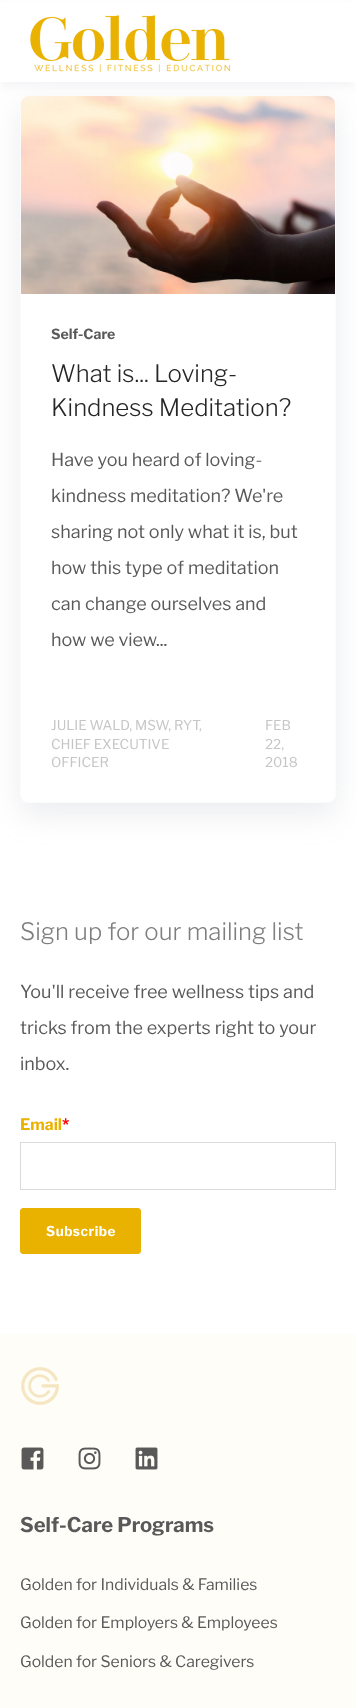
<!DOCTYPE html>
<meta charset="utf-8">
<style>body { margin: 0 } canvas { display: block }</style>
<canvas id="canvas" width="356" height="1708"></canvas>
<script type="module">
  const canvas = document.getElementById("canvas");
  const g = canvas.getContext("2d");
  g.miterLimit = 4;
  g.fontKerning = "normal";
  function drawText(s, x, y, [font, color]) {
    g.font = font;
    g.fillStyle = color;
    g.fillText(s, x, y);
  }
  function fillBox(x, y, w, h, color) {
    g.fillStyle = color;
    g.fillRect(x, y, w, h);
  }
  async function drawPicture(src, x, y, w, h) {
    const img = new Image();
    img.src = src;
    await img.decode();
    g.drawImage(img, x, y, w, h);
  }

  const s1 = ["bold 14px Libre Franklin", "#595959"];
  const s2 = ["300 24px Libre Franklin", "#262626"];
  const s3 = ["18px Libre Franklin", "#595959"];
  const s4 = ["13.5px Libre Franklin", "#C6C6C6"];
  const s5 = ["300 24px Libre Franklin", "#7F7F7F"];
  const s6 = ["bold 15.75px Libre Franklin", "#EAB200"];
  const s7 = ["bold 15.75px Libre Franklin", "#FF0000"];
  const s8 = ["bold 13.5px Libre Franklin", "#FFFFFF"];
  const s9 = ["bold 20.25px Libre Franklin", "#595959"];
  const s10 = ["15.75px Libre Franklin", "#595959"];

  fillBox(0, 0, 356, 1708, "#FFFFFF");
  g.save();
  g.beginPath();
  g.moveTo(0, 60);
  g.lineTo(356, 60);
  g.lineTo(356, 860);
  g.lineTo(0, 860);
  g.closePath();
  g.moveTo(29, 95);
  g.lineTo(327, 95);
  g.bezierCurveTo(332, 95, 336, 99, 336, 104);
  g.lineTo(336, 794);
  g.bezierCurveTo(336, 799, 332, 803, 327, 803);
  g.lineTo(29, 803);
  g.bezierCurveTo(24, 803, 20, 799, 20, 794);
  g.lineTo(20, 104);
  g.bezierCurveTo(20, 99, 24, 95, 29, 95);
  g.closePath();
  g.clip("evenodd");
  g.fillStyle = "rgba(154, 161, 177, 0.2)";
  g.filter = "blur(15px)";
  g.beginPath();
  g.roundRect(20, 106, 316, 708, 9);
  g.fill();
  g.filter = "none";
  g.restore();
  g.beginPath();
  g.roundRect(20.5, 95.5, 315, 707, 8.5);
  g.strokeStyle = "rgba(238, 238, 238, 0.2)";
  g.stroke();
  await drawPicture("pic2.png", 21, 96, 314, 198);
  g.fillStyle = "rgba(154, 161, 177, 0.1)";
  g.filter = "blur(5px)";
  g.beginPath();
  g.rect(0, 5, 356, 82);
  g.fill();
  g.filter = "none";
  fillBox(0, 2, 356, 80, "#FFFFFF");
  await drawPicture("pic1.png", 30, 15, 201, 58);
  drawText("Self-Care", 51, 339, s1);
  drawText("What is... Loving-", 51, 382, s2);
  drawText("Kindness Meditation?", 51, 416, s2);
  drawText("Have you heard of loving-", 51, 466, s3);
  drawText("kindness meditation? We're", 51, 502, s3);
  drawText("sharing not only what it is, but", 51, 538, s3);
  drawText("how this type of meditation", 51, 574, s3);
  drawText("can change ourselves and", 51, 610, s3);
  drawText("how we view...", 51, 646, s3);
  drawText("JULIE WALD, MSW, RYT,", 51, 730, s4);
  drawText("CHIEF EXECUTIVE", 51, 749, s4);
  drawText("OFFICER", 51, 767, s4);
  drawText("FEB", 265, 730, s4);
  drawText("22,", 265, 749, s4);
  drawText("2018", 265, 767, s4);
  drawText("Sign up for our mailing list", 20, 940, s5);
  drawText("You'll receive free wellness tips and", 20, 998, s3);
  drawText("tricks from the experts right to your", 20, 1034, s3);
  drawText("inbox.", 20, 1070, s3);
  drawText("Email", 20, 1130, s6);
  drawText("*", 62, 1130, s7);
  g.strokeStyle = "#DADADA";
  g.strokeRect(20.5, 1142.5, 315, 47);
  g.fillStyle = "#EAB200";
  g.beginPath();
  g.roundRect(20.5, 1208.5, 120, 45, 2.5);
  g.fill();
  g.strokeStyle = "#EAB200";
  g.stroke();
  g.letterSpacing = "0.5px";
  drawText("Subscribe", 46, 1236, s8);
  fillBox(0, 1334, 356, 374, "#FFFDF7");
  await drawPicture("pic3.png", 21, 1367, 38, 38);
  await drawPicture("pic4.png", 21, 1447, 23, 23);
  await drawPicture("pic5.png", 78, 1447, 23, 23);
  await drawPicture("pic6.png", 135, 1447, 23, 23);
  g.letterSpacing = "0px";
  drawText("Self-Care Programs", 20, 1532, s9);
  drawText("Golden for Individuals & Families", 20, 1590, s10);
  drawText("Golden for Employers & Employees", 20, 1628, s10);
  drawText("Golden for Seniors & Caregivers", 20, 1667, s10);
</script>
